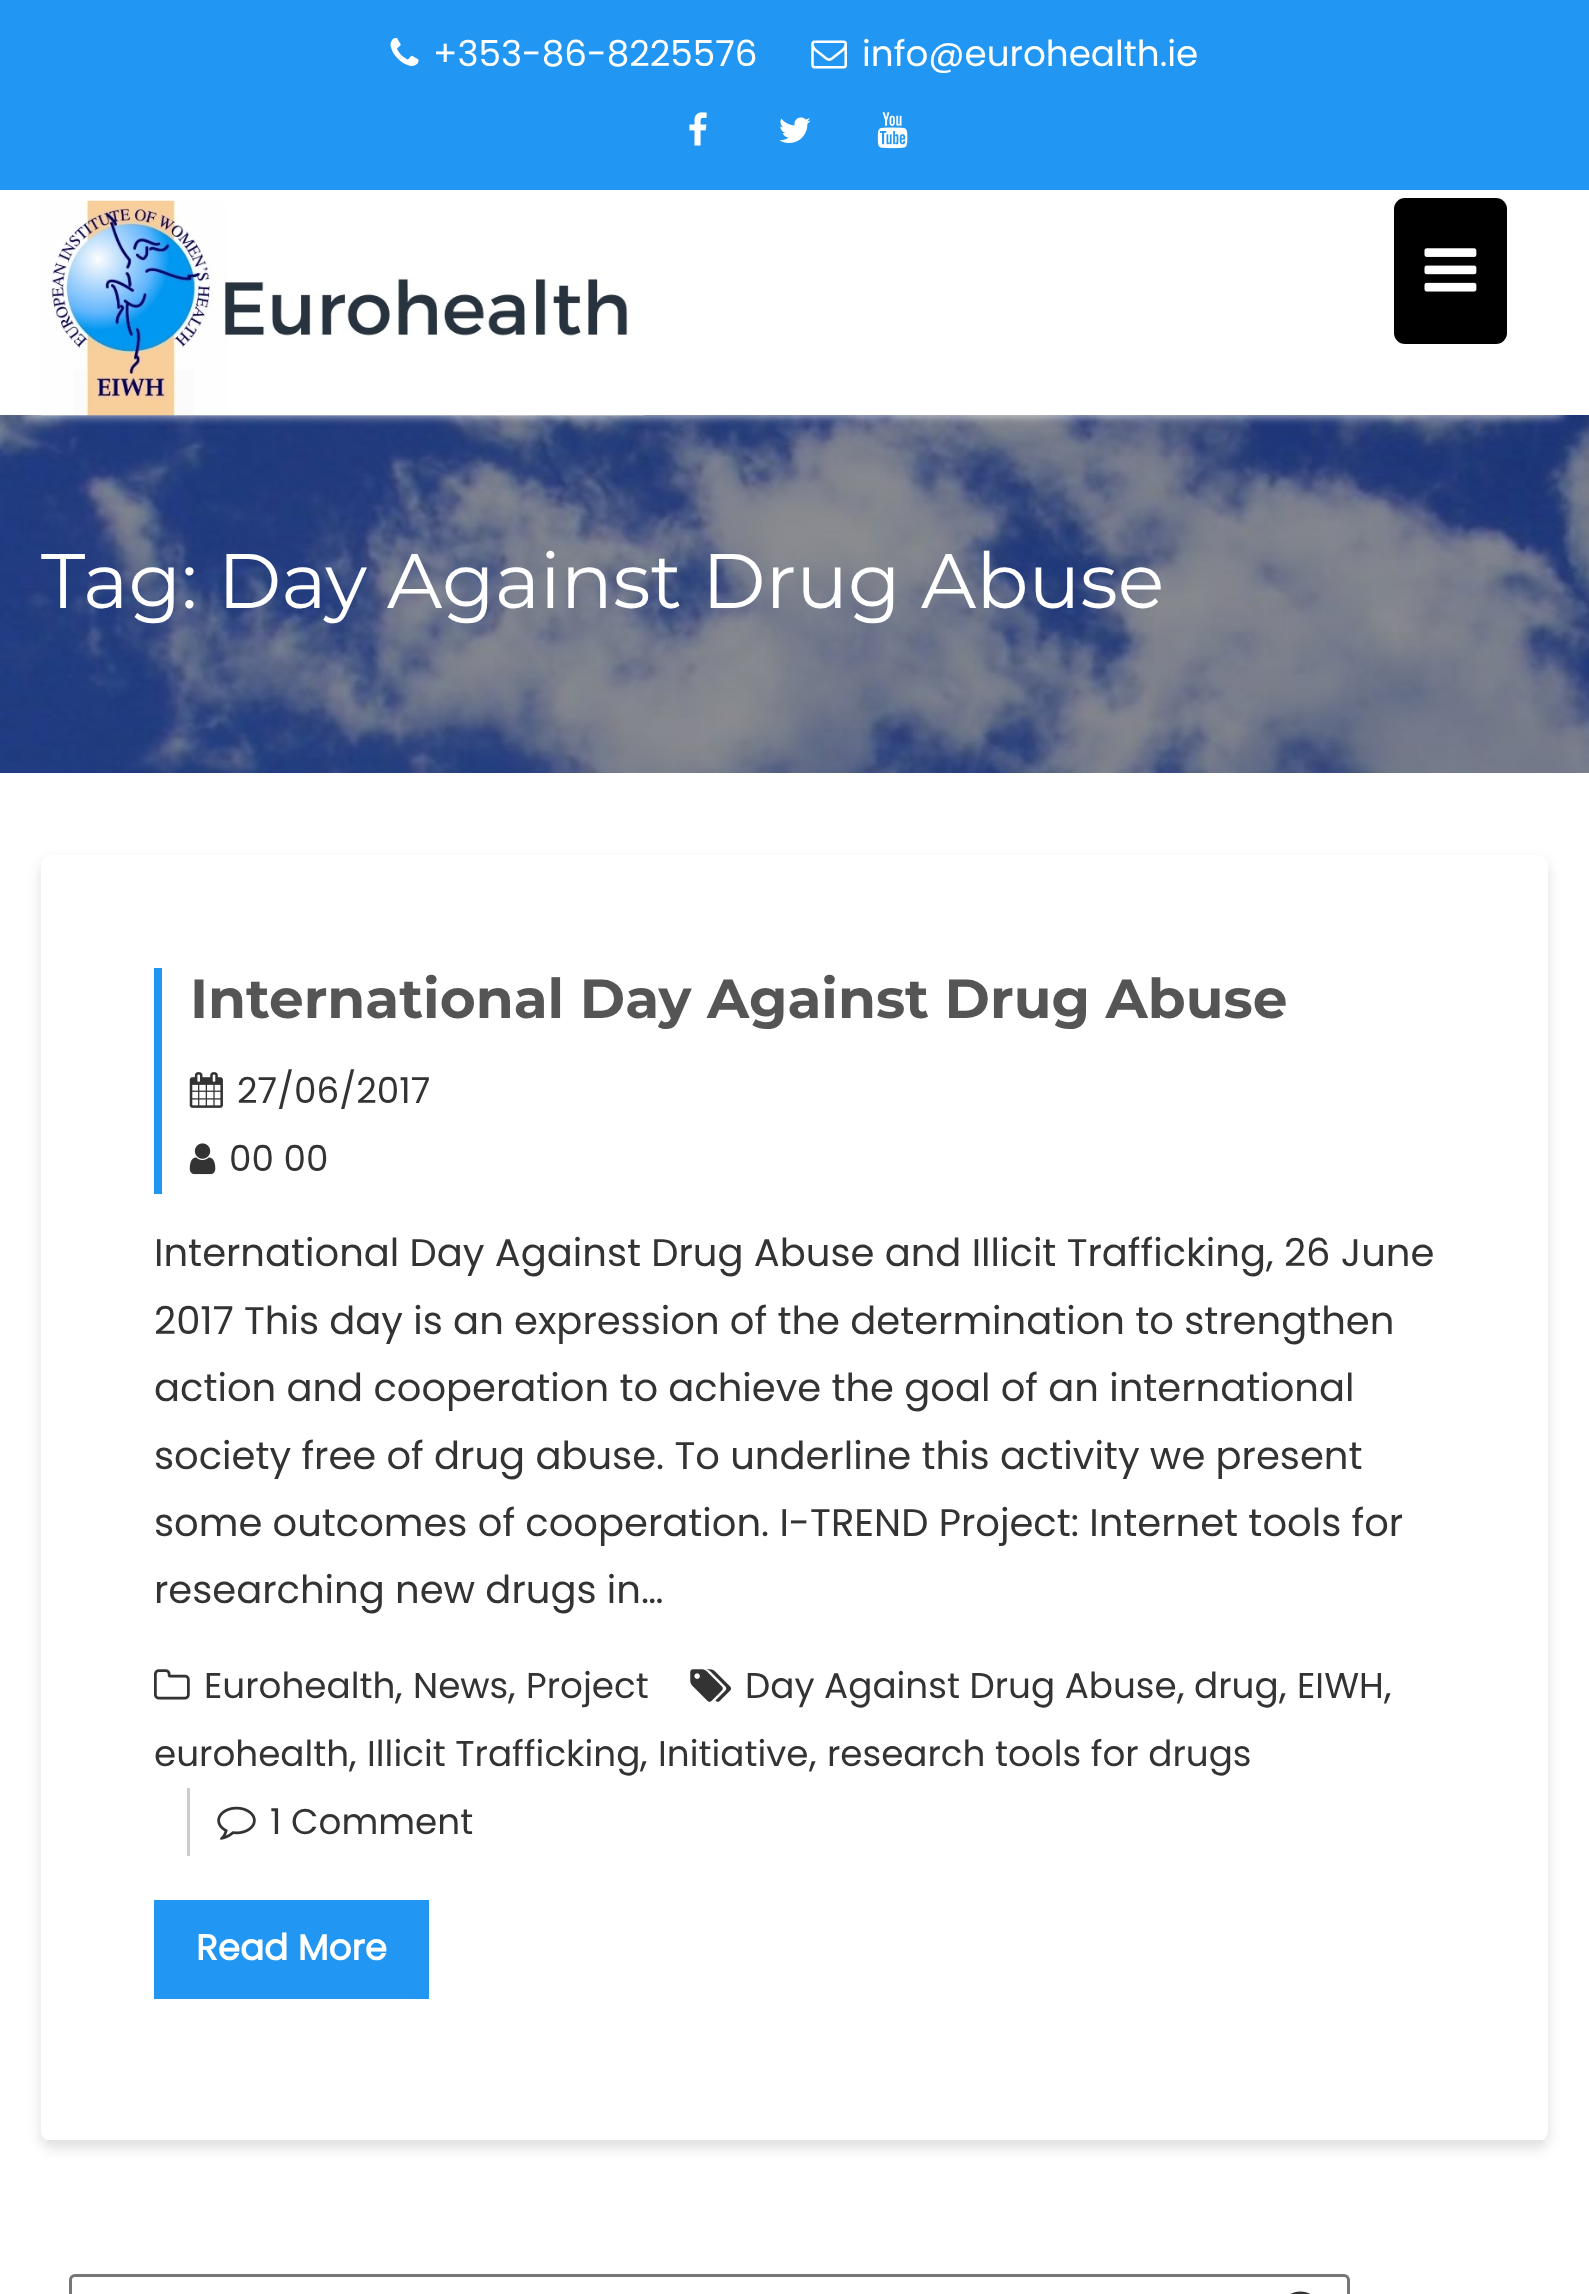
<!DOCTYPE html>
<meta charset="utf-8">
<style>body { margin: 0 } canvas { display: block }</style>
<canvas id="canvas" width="1589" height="2294"></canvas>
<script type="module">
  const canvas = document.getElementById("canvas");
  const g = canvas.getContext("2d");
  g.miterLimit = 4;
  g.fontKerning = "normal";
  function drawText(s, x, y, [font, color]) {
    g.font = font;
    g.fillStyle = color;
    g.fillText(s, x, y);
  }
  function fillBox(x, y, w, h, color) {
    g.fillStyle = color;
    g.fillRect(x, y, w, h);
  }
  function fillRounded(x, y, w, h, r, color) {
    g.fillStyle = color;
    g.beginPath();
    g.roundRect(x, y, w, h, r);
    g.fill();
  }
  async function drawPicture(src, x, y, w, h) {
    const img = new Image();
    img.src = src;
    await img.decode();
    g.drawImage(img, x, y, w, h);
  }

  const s1 = ["35.75px Poppins", "#FFFFFF"];
  const s2 = ["77px Montserrat", "#FFFFFF"];
  const s3 = ["bold 55px Montserrat", "#555555"];
  const s4 = ["35.75px Poppins", "#333333"];
  const s5 = ["38.5px Poppins", "#333333"];
  const s6 = ["bold 35.75px Poppins", "#FFFFFF"];

  fillBox(0, 0, 1589, 2294, "#FFFFFF");
  fillBox(0, 0, 1589, 190, "#2196F3");
  await drawPicture("pic1.png", 390, 37, 29, 29);
  drawText("+353-86-8225576", 433, 66, s1);
  await drawPicture("pic2.png", 811, 40, 36, 29);
  drawText("info@eurohealth.ie", 862, 66, s1);
  await drawPicture("pic3.png", 689, 112, 18, 34);
  await drawPicture("pic4.png", 779, 117, 32, 26);
  await drawPicture("pic5.png", 877, 112, 31, 37);
  await drawPicture("pic8.png", 0, 415, 1589, 358);
  g.save();
  g.beginPath();
  g.rect(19, 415, 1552, 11);
  g.clip();
  g.fillStyle = "rgba(238, 238, 238, 0.9)";
  g.filter = "blur(5.5px)";
  g.beginPath();
  g.rect(28, 245, 1534, 170);
  g.fill();
  g.filter = "none";
  g.restore();
  await drawPicture("pic6.png", 41, 200, 603, 216);
  fillRounded(1394, 198, 113, 146, 11, "#000000");
  await drawPicture("pic7.png", 1424, 248, 53, 44);
  drawText("Tag: Day Against Drug Abuse", 41, 608, s2);
  g.fillStyle = "rgba(0, 0, 0, 0.13)";
  g.filter = "blur(6.5px)";
  g.beginPath();
  g.roundRect(41, 861, 1507, 1287, 11);
  g.fill();
  g.filter = "none";
  fillRounded(41, 855, 1507, 1287, 11, "#FFFFFF");
  fillBox(47, 2140, 1496, 3, "#E5E5E5");
  fillBox(154, 968, 8, 226, "#2196F3");
  drawText("International Day Against Drug Abuse", 190, 1018, s3);
  await drawPicture("pic9.png", 189, 1072, 34, 36);
  drawText("27/06/2017", 237, 1103, s4);
  await drawPicture("pic10.png", 189, 1143, 27, 32);
  drawText("00 00", 229, 1171, s4);
  drawText("International Day Against Drug Abuse and Illicit Trafficking, 26 June", 154, 1266, s5);
  drawText("2017 This day is an expression of the determination to strengthen", 154, 1334, s5);
  drawText("action and cooperation to achieve the goal of an international", 154, 1401, s5);
  drawText("society free of drug abuse. To underline this activity we present", 154, 1469, s5);
  drawText("some outcomes of cooperation. I-TREND Project: Internet tools for", 154, 1536, s5);
  drawText("researching new drugs in…", 154, 1603, s5);
  await drawPicture("pic11.png", 690, 1669, 41, 33);
  drawText("Day Against Drug Abuse", 745, 1698, s4);
  drawText(",", 1177, 1698, s5);
  drawText("drug", 1194, 1698, s4);
  drawText(",", 1279, 1698, s5);
  drawText("EIWH", 1297, 1698, s4);
  drawText(",", 1384, 1698, s5);
  drawText("eurohealth", 154, 1766, s4);
  drawText(",", 349, 1766, s5);
  drawText("Illicit Trafficking", 367, 1766, s4);
  drawText(",", 640, 1766, s5);
  drawText("Initiative", 658, 1766, s4);
  drawText(",", 809, 1766, s5);
  drawText("research tools for drugs", 827, 1766, s4);
  await drawPicture("pic12.png", 154, 1669, 36, 31);
  drawText("Eurohealth", 204, 1698, s4);
  drawText(",", 395, 1698, s5);
  drawText("News", 413, 1698, s4);
  drawText(",", 508, 1698, s5);
  drawText("Project", 526, 1698, s4);
  fillBox(187, 1788, 3, 68, "#CCCCCC");
  await drawPicture("pic13.png", 217, 1806, 39, 34);
  drawText("1 Comment", 270, 1834, s4);
  fillBox(154, 1900, 275, 99, "#2196F3");
  drawText("Read More", 196, 1960, s6);
  g.beginPath();
  g.roundRect(70.5, 2275.5, 1278, 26, 4.5);
  g.strokeStyle = "#767676";
  g.lineWidth = 3;
  g.stroke();
  await drawPicture("pic14.png", 1290, 2291, 21, 3);
</script>
